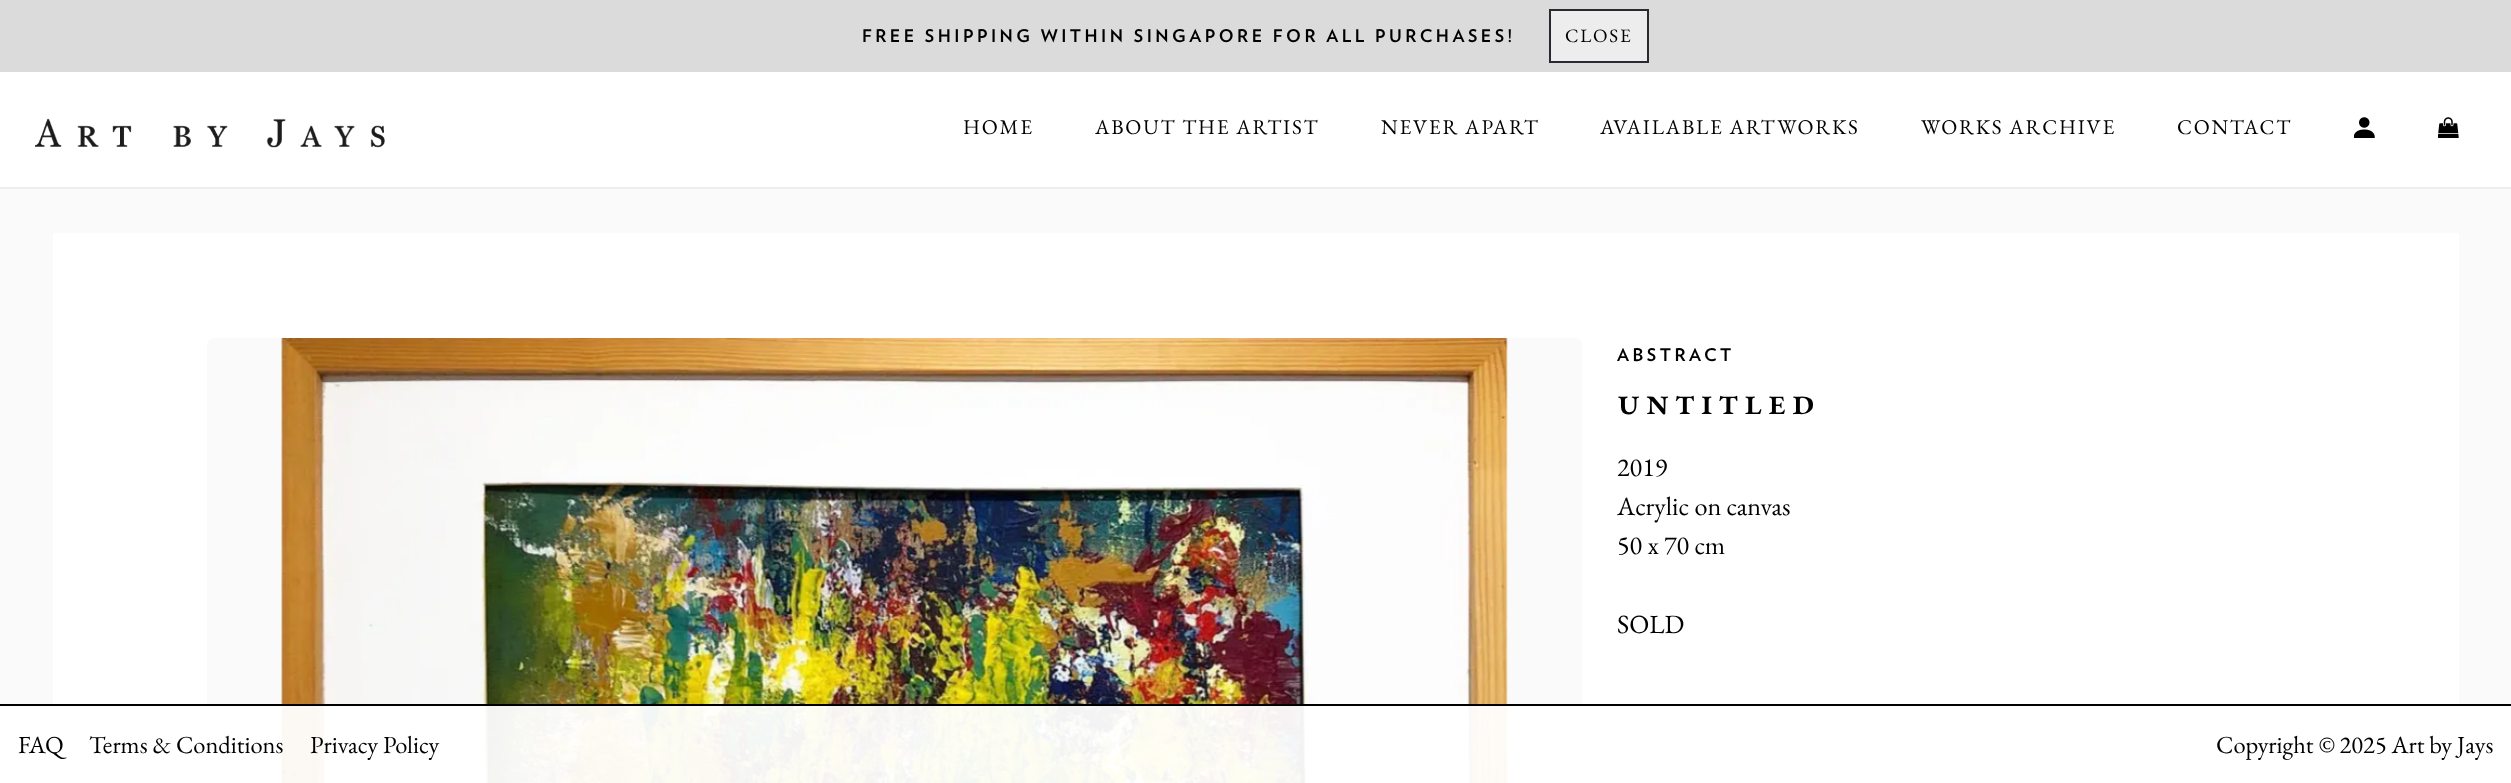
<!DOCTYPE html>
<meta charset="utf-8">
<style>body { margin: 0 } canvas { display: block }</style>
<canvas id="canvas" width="2511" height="783"></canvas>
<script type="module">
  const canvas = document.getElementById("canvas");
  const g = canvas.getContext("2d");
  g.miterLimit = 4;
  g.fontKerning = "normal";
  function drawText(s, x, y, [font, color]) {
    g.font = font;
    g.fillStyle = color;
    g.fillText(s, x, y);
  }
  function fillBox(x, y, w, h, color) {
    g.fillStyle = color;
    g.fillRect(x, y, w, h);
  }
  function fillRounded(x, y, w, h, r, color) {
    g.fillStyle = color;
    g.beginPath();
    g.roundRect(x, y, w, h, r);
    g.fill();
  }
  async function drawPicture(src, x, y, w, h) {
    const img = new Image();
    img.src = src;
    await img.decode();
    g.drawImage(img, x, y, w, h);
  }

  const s1 = ["bold 17.5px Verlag", "#000000"];
  const s2 = ["19px EB Garamond", "#000000"];
  const s3 = ["21px EB Garamond", "#000000"];
  const s4 = ["500 38.5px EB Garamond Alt", "#000000"];
  const s5 = ["26.25px EB Garamond", "#000000"];
  const s6 = ["24.5px EB Garamond", "#000000"];

  fillBox(0, 0, 2511, 783, "#FAFAFA");
  fillBox(0, 72, 2511, 115, "#FFFFFF");
  fillBox(0, 187, 2511, 2, "#EDEDED");
  fillBox(0, 0, 2511, 72, "#DBDBDB");
  g.letterSpacing = "3.5px";
  drawText("FREE SHIPPING WITHIN SINGAPORE FOR ALL PURCHASES!", 862, 42, s1);
  g.fillStyle = "#EDEDED";
  g.beginPath();
  g.rect(1550, 10, 98, 52);
  g.fill();
  g.strokeStyle = "#272B2F";
  g.lineWidth = 2;
  g.stroke();
  g.letterSpacing = "1.75px";
  drawText("CLOSE", 1565, 42, s2);
  await drawPicture("pic1.png", 35, 118, 350, 30);
  drawText("HOME", 963, 134, s3);
  drawText("ABOUT THE ARTIST", 1095, 134, s3);
  drawText("NEVER APART", 1381, 134, s3);
  drawText("AVAILABLE ARTWORKS", 1600, 134, s3);
  drawText("WORKS ARCHIVE", 1921, 134, s3);
  drawText("CONTACT", 2177, 134, s3);
  await drawPicture("pic2.png", 2354, 117, 21, 21);
  await drawPicture("pic3.png", 2438, 117, 21, 21);
  fillBox(53, 233, 2406, 550, "#FFFFFF");
  fillRounded(207, 338, 1375, 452, 7, "#FAFAFA");
  await drawPicture("pic4.png", 281, 338, 1227, 445);
  g.letterSpacing = "3.5px";
  drawText("ABSTRACT", 1617, 361, s1);
  g.letterSpacing = "5.25px";
  drawText("UNTITLED", 1617, 414, s4);
  g.letterSpacing = "0px";
  drawText("2019", 1617, 476, s5);
  drawText("Acrylic on canvas", 1617, 515, s5);
  drawText("50 x 70 cm", 1617, 554, s5);
  drawText("SOLD", 1617, 633, s5);
  fillBox(0, 706, 2511, 77, "rgba(255, 255, 255, 0.95)");
  fillBox(0, 704, 2511, 2, "#000000");
  drawText("FAQ", 18, 753, s6);
  drawText("Terms & Conditions", 89, 753, s6);
  drawText("Privacy Policy", 310, 753, s6);
  drawText("Copyright © 2025 Art by Jays", 2216, 753, s6);
</script>
